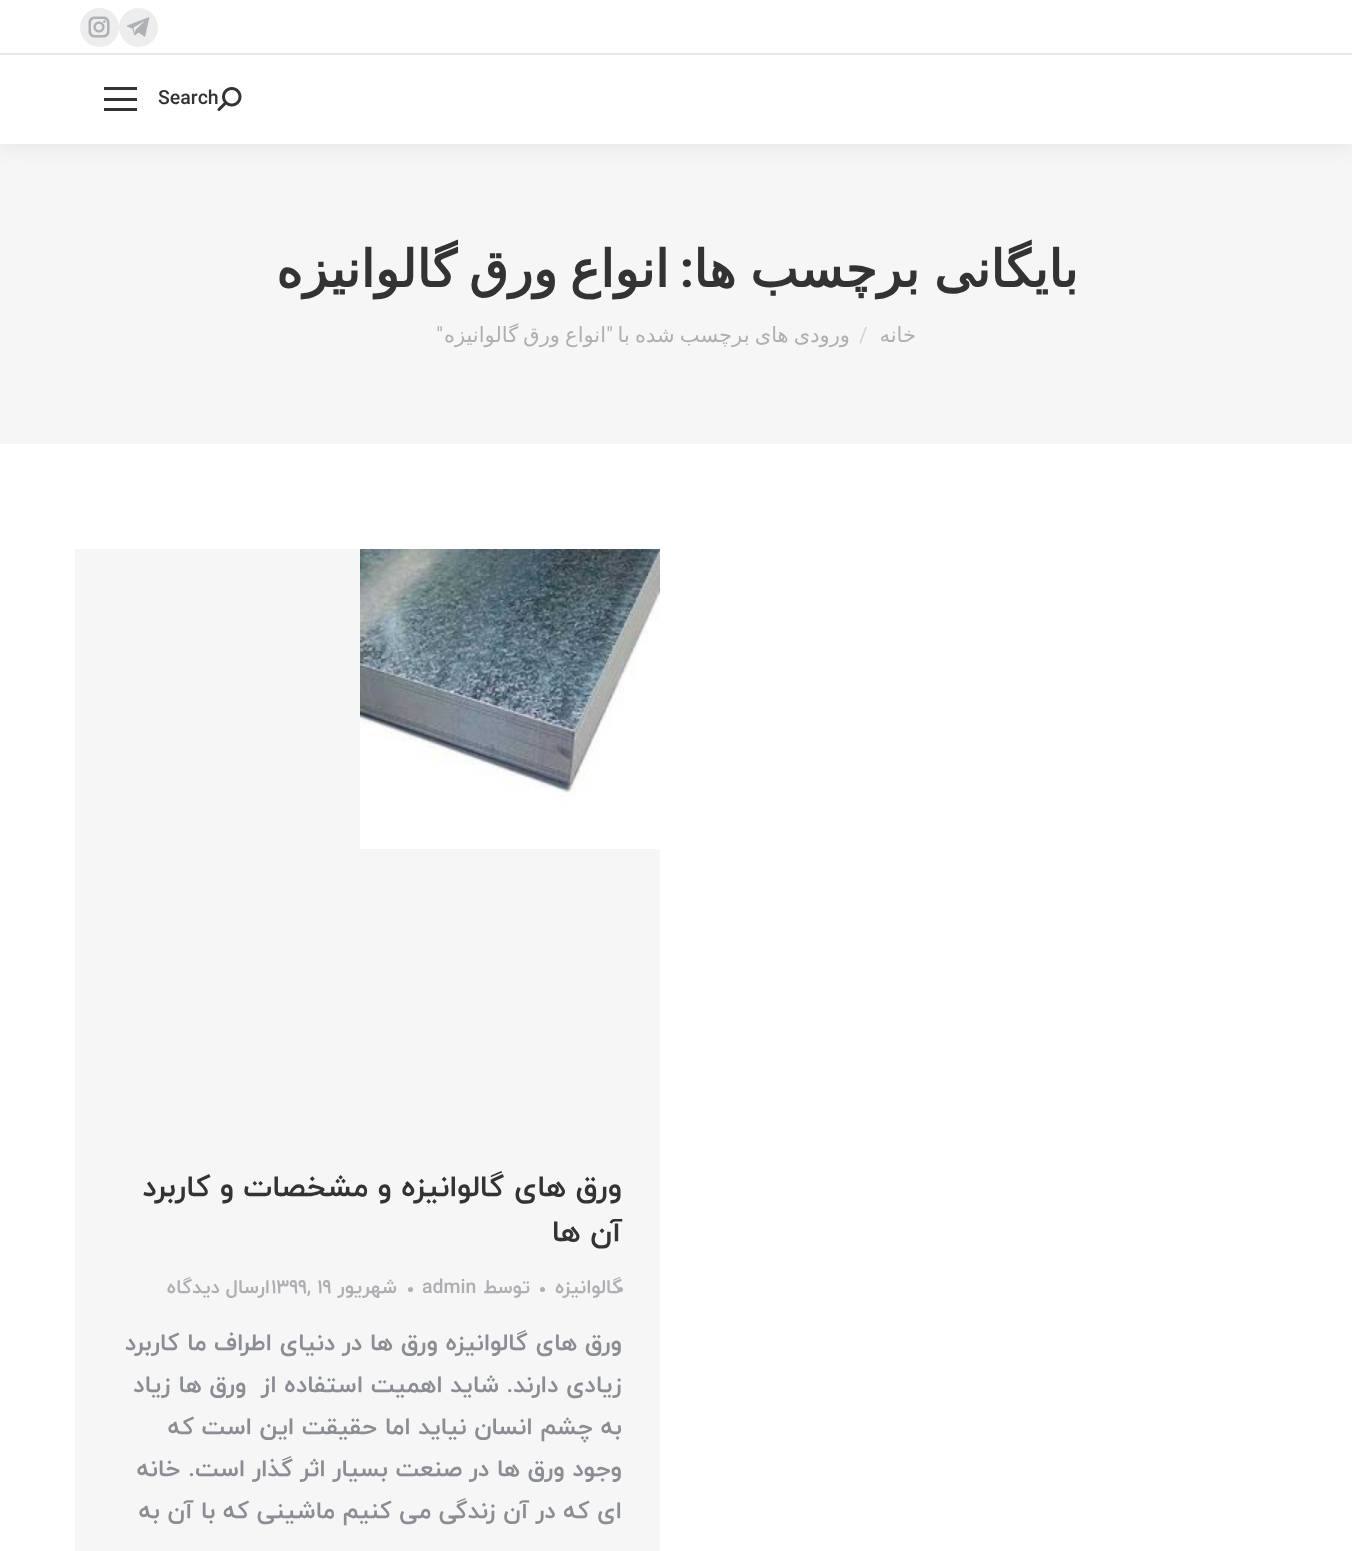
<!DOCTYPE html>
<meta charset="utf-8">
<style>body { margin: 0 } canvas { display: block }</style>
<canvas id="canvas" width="1352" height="1551"></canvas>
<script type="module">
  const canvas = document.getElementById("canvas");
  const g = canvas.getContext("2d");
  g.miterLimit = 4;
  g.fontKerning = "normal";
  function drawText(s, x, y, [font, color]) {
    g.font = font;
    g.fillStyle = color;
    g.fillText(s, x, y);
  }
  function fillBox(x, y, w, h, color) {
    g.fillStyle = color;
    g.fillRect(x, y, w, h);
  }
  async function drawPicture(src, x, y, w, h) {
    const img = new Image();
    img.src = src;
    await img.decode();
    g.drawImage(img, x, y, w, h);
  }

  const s1 = ["bold 19.5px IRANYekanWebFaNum", "#333333"];
  const s2 = ["bold 51px DejaVu Sans", "#333333"];
  const s3 = ["bold 51px Roboto", "#333333"];
  const s4 = ["21px DejaVu Sans", "#ADAFB3"];
  const s5 = ["21px Roboto", "#D2D3D5"];
  const s6 = ["21px Roboto", "#ADAFB3"];
  const s7 = ["bold 30px IRANYekanWebFaNum", "#333333"];
  const s8 = ["bold 19.5px IRANYekanWebFaNum", "#ADAFB3"];
  const s9 = ["bold 24px IRANYekanWebFaNum", "#8B8D94"];

  fillBox(0, 0, 1352, 1551, "#FFFFFF");
  fillBox(0, 144, 1352, 300, "#F6F6F6");
  g.fillStyle = "rgba(0, 0, 0, 0.07)";
  g.filter = "blur(11px)";
  g.beginPath();
  g.rect(-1, -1, 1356, 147);
  g.fill();
  g.filter = "none";
  fillBox(0, 0, 1352, 144, "#FFFFFF");
  g.fillStyle = "#EDEDED";
  g.beginPath();
  g.arc(138.5, 27.5, 19.5, 0, Math.PI * 2);
  g.fill();
  await drawPicture("pic1.png", 126, 17, 24, 20);
  g.beginPath();
  g.arc(99.5, 27.5, 19.5, 0, Math.PI * 2);
  g.fill();
  await drawPicture("pic2.png", 88, 16, 22, 22);
  fillBox(0, 53, 1352, 2, "#E9E9E9");
  await drawPicture("pic3.png", 217, 87, 25, 24);
  drawText("Search", 158, 104, s1);
  fillBox(104, 87, 33, 3, "#333333");
  fillBox(104, 98, 33, 3, "#333333");
  fillBox(104, 108, 33, 3, "#333333");
  g.save();
  g.beginPath();
  g.rect(276, 236, 801, 66);
  g.clip();
  g.wordSpacing = "-2px";
  g.direction = "rtl";
  drawText("بایگانی برچسب ها", 1078, 287, s2);
  g.restore();
  g.direction = "rtl";
  drawText(":", 694, 287, s3);
  g.wordSpacing = "-4px";
  drawText("انواع ورق گالوانیزه", 669, 287, s2);
  g.wordSpacing = "0px";
  drawText("خانه", 916, 342, s4);
  g.direction = "ltr";
  drawText("/", 859, 342, s5);
  g.wordSpacing = "-1.5px";
  g.direction = "rtl";
  drawText("ورودی های برچسب شده با", 850, 342, s4);
  g.wordSpacing = "0px";
  drawText("\"", 613, 342, s6);
  g.wordSpacing = "-1.5px";
  drawText("انواع ورق گالوانیزه", 606, 342, s4);
  g.wordSpacing = "0px";
  drawText("\"", 443, 342, s6);
  fillBox(75, 549, 585, 1002, "#F6F6F6");
  await drawPicture("pic4.png", 360, 549, 300, 300);
  drawText("ورق های گالوانیزه و مشخصات و کاربرد", 622, 1196, s7);
  drawText("آن ها", 622, 1241, s7);
  drawText("گالوانیزه", 622, 1293, s8);
  g.beginPath();
  g.arc(620.5, 1289.5, 2.5, 0, Math.PI * 2);
  g.fill();
  g.beginPath();
  g.arc(542.5, 1289.5, 2.5, 0, Math.PI * 2);
  g.fill();
  drawText("توسط", 530, 1293, s8);
  g.direction = "ltr";
  drawText("admin", 422, 1293, s8);
  g.beginPath();
  g.arc(410.5, 1289.5, 2.5, 0, Math.PI * 2);
  g.fill();
  g.direction = "rtl";
  drawText("شهریور", 397, 1293, s8);
  g.direction = "ltr";
  drawText("1399, 19", 271, 1293, s8);
  g.direction = "rtl";
  drawText("ارسال دیدگاه", 270, 1293, s8);
  drawText("ورق های گالوانیزه ورق ها در دنیای اطراف ما کاربرد", 622, 1350, s9);
  drawText("زیادی دارند. شاید اهمیت استفاده از  ورق ها زیاد", 622, 1392, s9);
  drawText("به چشم انسان نیاید اما حقیقت این است که", 622, 1434, s9);
  drawText("وجود ورق ها در صنعت بسیار اثر گذار است. خانه", 622, 1476, s9);
  drawText("ای که در آن زندگی می کنیم ماشینی که با آن به", 622, 1518, s9);
</script>
